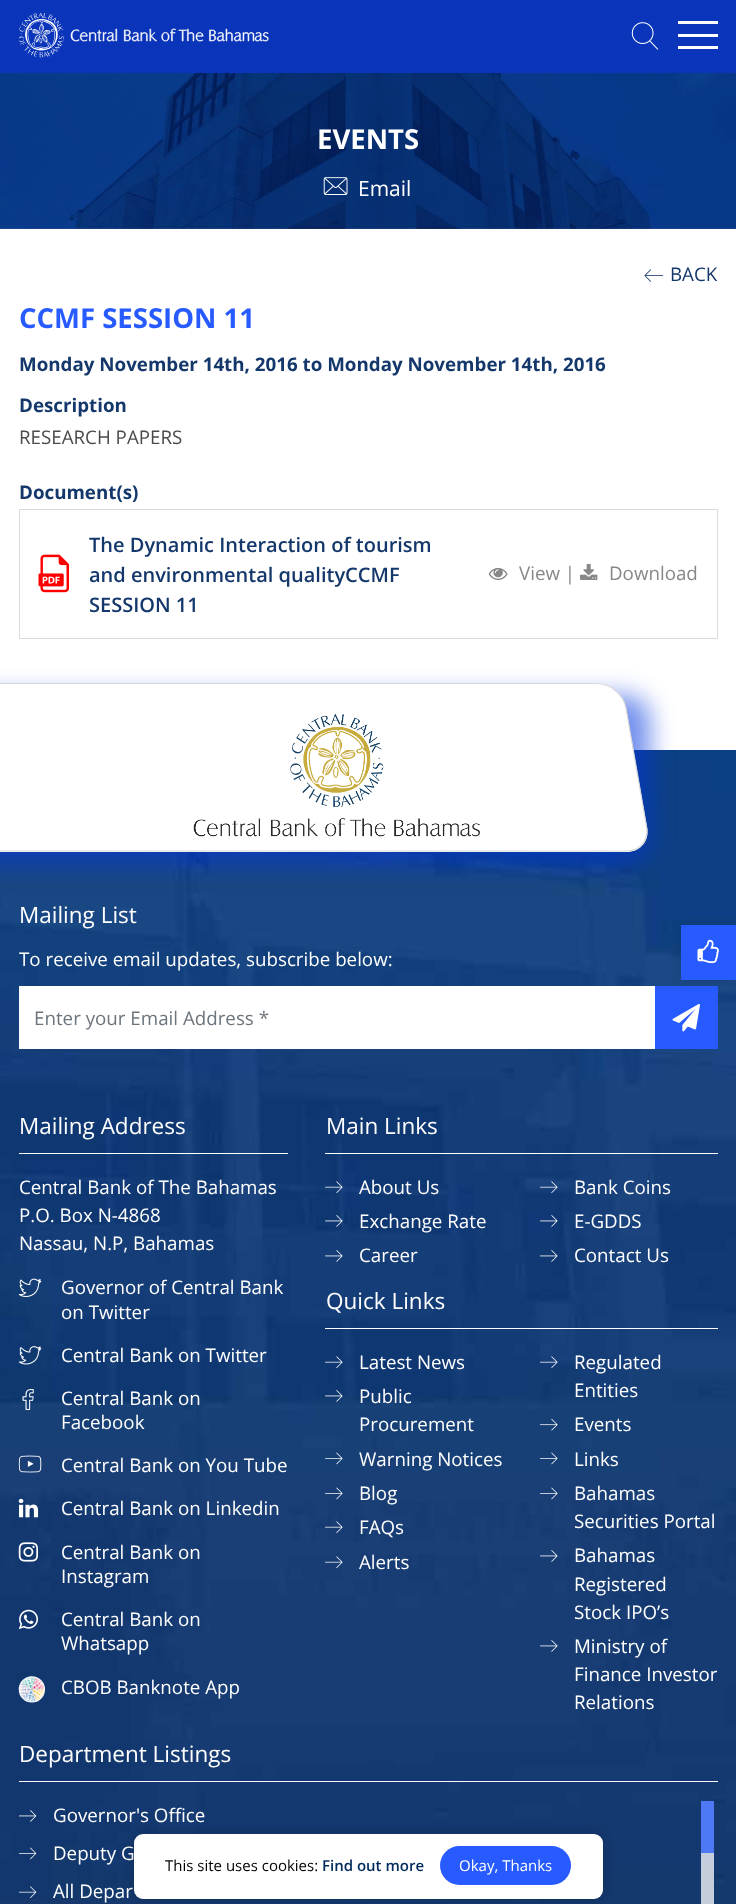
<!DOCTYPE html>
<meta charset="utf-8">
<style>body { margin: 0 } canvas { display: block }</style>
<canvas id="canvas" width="736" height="1904"></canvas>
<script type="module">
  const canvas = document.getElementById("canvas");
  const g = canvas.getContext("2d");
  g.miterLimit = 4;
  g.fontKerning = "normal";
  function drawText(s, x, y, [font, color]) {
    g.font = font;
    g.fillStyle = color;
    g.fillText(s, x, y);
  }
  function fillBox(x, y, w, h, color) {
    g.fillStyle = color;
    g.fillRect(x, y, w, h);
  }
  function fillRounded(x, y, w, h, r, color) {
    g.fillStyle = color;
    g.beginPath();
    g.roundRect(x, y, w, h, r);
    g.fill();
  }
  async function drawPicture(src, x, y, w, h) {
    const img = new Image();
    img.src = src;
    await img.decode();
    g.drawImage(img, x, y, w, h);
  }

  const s1 = ["bold 27.5px Open Sans", "#FFFFFF"];
  const s2 = ["21px Open Sans", "#FFFFFF"];
  const s3 = ["18.75px Open Sans", "#14386B"];
  const s4 = ["bold 27.5px Open Sans", "#285BFF"];
  const s5 = ["bold 18.75px Open Sans", "#14386B"];
  const s6 = ["18.75px Open Sans", "#4B4B4B"];
  const s7 = ["600 20px Open Sans", "#14386B"];
  const s8 = ["18.75px Open Sans", "#878787"];
  const s9 = ["22.5px Open Sans", "#FFFFFF"];
  const s10 = ["18.75px Open Sans", "#FFFFFF"];
  const s11 = ["18.75px Open Sans", "#6C757D"];
  const s12 = ["15px Open Sans", "#000000"];
  const s13 = ["600 15px Open Sans", "#002A5C"];
  const s14 = ["15px Open Sans", "#FFFFFF"];

  fillBox(0, 0, 736, 1904, "#FFFFFF");
  fillBox(0, 0, 736, 73, "#0A34BA");
  await drawPicture("pic1.png", 19, 13, 250, 45);
  await drawPicture("pic2.png", 631, 22, 28, 28);
  fillBox(678, 46, 40, 3, "#FFFFFF");
  fillBox(678, 21, 40, 3, "#FFFFFF");
  fillBox(678, 34, 40, 3, "#FFFFFF");
  await drawPicture("pic3.png", 0, 73, 736, 156);
  drawText("EVENTS", 317, 149, s1);
  await drawPicture("pic4.png", 323, 177, 25, 18);
  drawText("Email", 358, 196, s2);
  await drawPicture("pic5.png", 644, 269, 20, 13);
  drawText("BACK", 670, 281, s3);
  drawText("CCMF SESSION 11", 19, 328, s4);
  drawText("Monday November 14th, 2016 to Monday November 14th, 2016", 19, 371, s5);
  drawText("Description", 19, 412, s5);
  drawText("RESEARCH PAPERS", 19, 444, s6);
  drawText("Document(s)", 19, 499, s5);
  g.strokeStyle = "#DBDBDB";
  g.strokeRect(19.5, 509.5, 698, 129);
  await drawPicture("pic6.png", 38, 554, 31, 39);
  drawText("The Dynamic Interaction of tourism", 89, 552, s7);
  drawText("and environmental qualityCCMF", 89, 582, s7);
  drawText("SESSION 11", 89, 612, s7);
  await drawPicture("pic7.png", 488, 568, 20, 12);
  drawText("View |", 519, 580, s8);
  await drawPicture("pic8.png", 580, 563, 18, 17);
  drawText("Download", 609, 580, s8);
  await drawPicture("pic9.png", 0, 750, 736, 1154);
  g.fillStyle = "rgba(0, 53, 223, 0.55)";
  g.filter = "blur(12.5px)";
  g.beginPath();
  g.roundRect(-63, 695, 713, 169, 25);
  g.fill();
  g.filter = "none";
  g.fillStyle = "#FFFFFF";
  g.beginPath();
  g.moveTo(-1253, 683);
  g.lineTo(597, 683);
  g.bezierCurveTo(611, 683, 624, 694, 626, 708);
  g.lineTo(647, 827);
  g.bezierCurveTo(650, 840, 641, 852, 627, 852);
  g.lineTo(-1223, 852);
  g.closePath();
  g.fill();
  g.beginPath();
  g.moveTo(-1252.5, 683.5);
  g.lineTo(597, 683.5);
  g.bezierCurveTo(610.5, 683.5, 623.5, 694.5, 626, 708);
  g.lineTo(646.5, 826.5);
  g.bezierCurveTo(649, 840, 640, 851, 626.5, 851);
  g.lineTo(-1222.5, 851);
  g.closePath();
  g.strokeStyle = "#D7D7D7";
  g.lineWidth = 1.2;
  g.stroke();
  await drawPicture("pic10.png", 193, 713, 287, 124);
  drawText("Mailing List", 19, 923, s9);
  drawText("To receive email updates, subscribe below:", 19, 966, s10);
  fillBox(19, 986, 636, 63, "#FFFFFF");
  drawText("Enter your Email Address *", 34, 1025, s11);
  fillBox(655, 986, 63, 63, "#285BFF");
  await drawPicture("pic11.png", 672, 1004, 28, 28);
  fillBox(19, 1153, 269, 1, "#FFFFFF");
  drawText("Mailing Address", 19, 1134, s9);
  drawText("Central Bank of The Bahamas", 19, 1194, s10);
  drawText("P.O. Box N-4868", 19, 1222, s10);
  drawText("Nassau, N.P, Bahamas", 19, 1250, s10);
  await drawPicture("pic12.png", 18, 1278, 24, 19);
  drawText("Governor of Central Bank", 61, 1294, s10);
  drawText("on Twitter", 61, 1319, s10);
  await drawPicture("pic13.png", 18, 1346, 24, 19);
  drawText("Central Bank on Twitter", 61, 1362, s10);
  await drawPicture("pic14.png", 22, 1389, 12, 21);
  drawText("Central Bank on", 61, 1405, s10);
  drawText("Facebook", 61, 1429, s10);
  await drawPicture("pic15.png", 18, 1455, 24, 18);
  drawText("Central Bank on You Tube", 61, 1472, s10);
  await drawPicture("pic16.png", 18, 1498, 21, 20);
  drawText("Central Bank on Linkedin", 61, 1515, s10);
  await drawPicture("pic17.png", 18, 1542, 21, 20);
  drawText("Central Bank on", 61, 1559, s10);
  drawText("Instagram", 61, 1583, s10);
  await drawPicture("pic18.png", 18, 1609, 20, 21);
  drawText("Central Bank on", 61, 1626, s10);
  drawText("Whatsapp", 61, 1650, s10);
  await drawPicture("pic19.png", 18, 1676, 27, 27);
  drawText("CBOB Banknote App", 61, 1694, s10);
  fillBox(325, 1153, 393, 1, "#FFFFFF");
  drawText("Main Links", 326, 1134, s9);
  await drawPicture("pic20.png", 325, 1181, 18, 12);
  drawText("About Us", 359, 1194, s10);
  await drawPicture("pic21.png", 325, 1215, 18, 12);
  drawText("Exchange Rate", 359, 1228, s10);
  await drawPicture("pic22.png", 325, 1250, 18, 12);
  drawText("Career", 359, 1262, s10);
  await drawPicture("pic23.png", 540, 1181, 18, 12);
  drawText("Bank Coins", 574, 1194, s10);
  await drawPicture("pic24.png", 540, 1215, 18, 12);
  drawText("E-GDDS", 574, 1228, s10);
  await drawPicture("pic25.png", 540, 1250, 18, 12);
  drawText("Contact Us", 574, 1262, s10);
  fillBox(325, 1328, 393, 1, "#FFFFFF");
  drawText("Quick Links", 326, 1309, s9);
  await drawPicture("pic26.png", 325, 1356, 18, 12);
  drawText("Latest News", 359, 1369, s10);
  await drawPicture("pic27.png", 325, 1390, 18, 12);
  drawText("Public", 359, 1403, s10);
  drawText("Procurement", 359, 1431, s10);
  await drawPicture("pic28.png", 325, 1452, 18, 13);
  drawText("Warning Notices", 359, 1466, s10);
  await drawPicture("pic29.png", 540, 1356, 18, 12);
  drawText("Regulated", 574, 1369, s10);
  drawText("Entities", 574, 1397, s10);
  await drawPicture("pic30.png", 540, 1418, 18, 13);
  drawText("Events", 574, 1431, s10);
  await drawPicture("pic28.png", 540, 1452, 18, 13);
  drawText("Links", 574, 1466, s10);
  await drawPicture("pic31.png", 325, 1487, 18, 13);
  drawText("Blog", 359, 1500, s10);
  await drawPicture("pic32.png", 325, 1521, 18, 12);
  drawText("FAQs", 359, 1534, s10);
  await drawPicture("pic33.png", 325, 1556, 18, 12);
  drawText("Alerts", 359, 1569, s10);
  await drawPicture("pic31.png", 540, 1487, 18, 13);
  drawText("Bahamas", 574, 1500, s10);
  drawText("Securities Portal", 574, 1528, s10);
  await drawPicture("pic34.png", 540, 1550, 18, 12);
  drawText("Bahamas", 574, 1562, s10);
  drawText("Registered", 574, 1591, s10);
  drawText("Stock IPO’s", 574, 1619, s10);
  await drawPicture("pic35.png", 540, 1640, 18, 12);
  drawText("Ministry of", 574, 1653, s10);
  drawText("Finance Investor", 574, 1681, s10);
  drawText("Relations", 574, 1709, s10);
  fillBox(19, 1781, 699, 1, "#FFFFFF");
  drawText("Department Listings", 19, 1762, s9);
  await drawPicture("pic36.png", 19, 1810, 18, 12);
  drawText("Governor's Office", 53, 1822, s10);
  await drawPicture("pic37.png", 19, 1847, 18, 13);
  drawText("Deputy G", 53, 1860, s10);
  await drawPicture("pic38.png", 19, 1886, 18, 12);
  drawText("All Depar", 53, 1898, s10);
  fillBox(701, 1801, 13, 52, "#4F78F6");
  fillBox(701, 1853, 13, 51, "rgba(255, 255, 255, 0.75)");
  g.fillStyle = "rgba(0, 0, 0, 0.1)";
  g.filter = "blur(6px)";
  g.beginPath();
  g.rect(681, 925, 55, 55);
  g.fill();
  g.filter = "none";
  fillBox(681, 925, 55, 55, "#285BFF");
  await drawPicture("pic39.png", 697, 939, 22, 25);
  g.fillStyle = "rgba(0, 0, 0, 0.2)";
  g.filter = "blur(6px)";
  g.beginPath();
  g.roundRect(134, 1834, 469, 65, 9);
  g.fill();
  g.filter = "none";
  fillRounded(134, 1834, 469, 65, 9, "#FFFFFF");
  drawText("This site uses cookies:", 165, 1871, s12);
  drawText("Find out more", 322, 1871, s13);
  fillRounded(440, 1846, 131, 39, 19.5, "#285BFF");
  drawText("Okay, Thanks", 459, 1871, s14);
</script>
